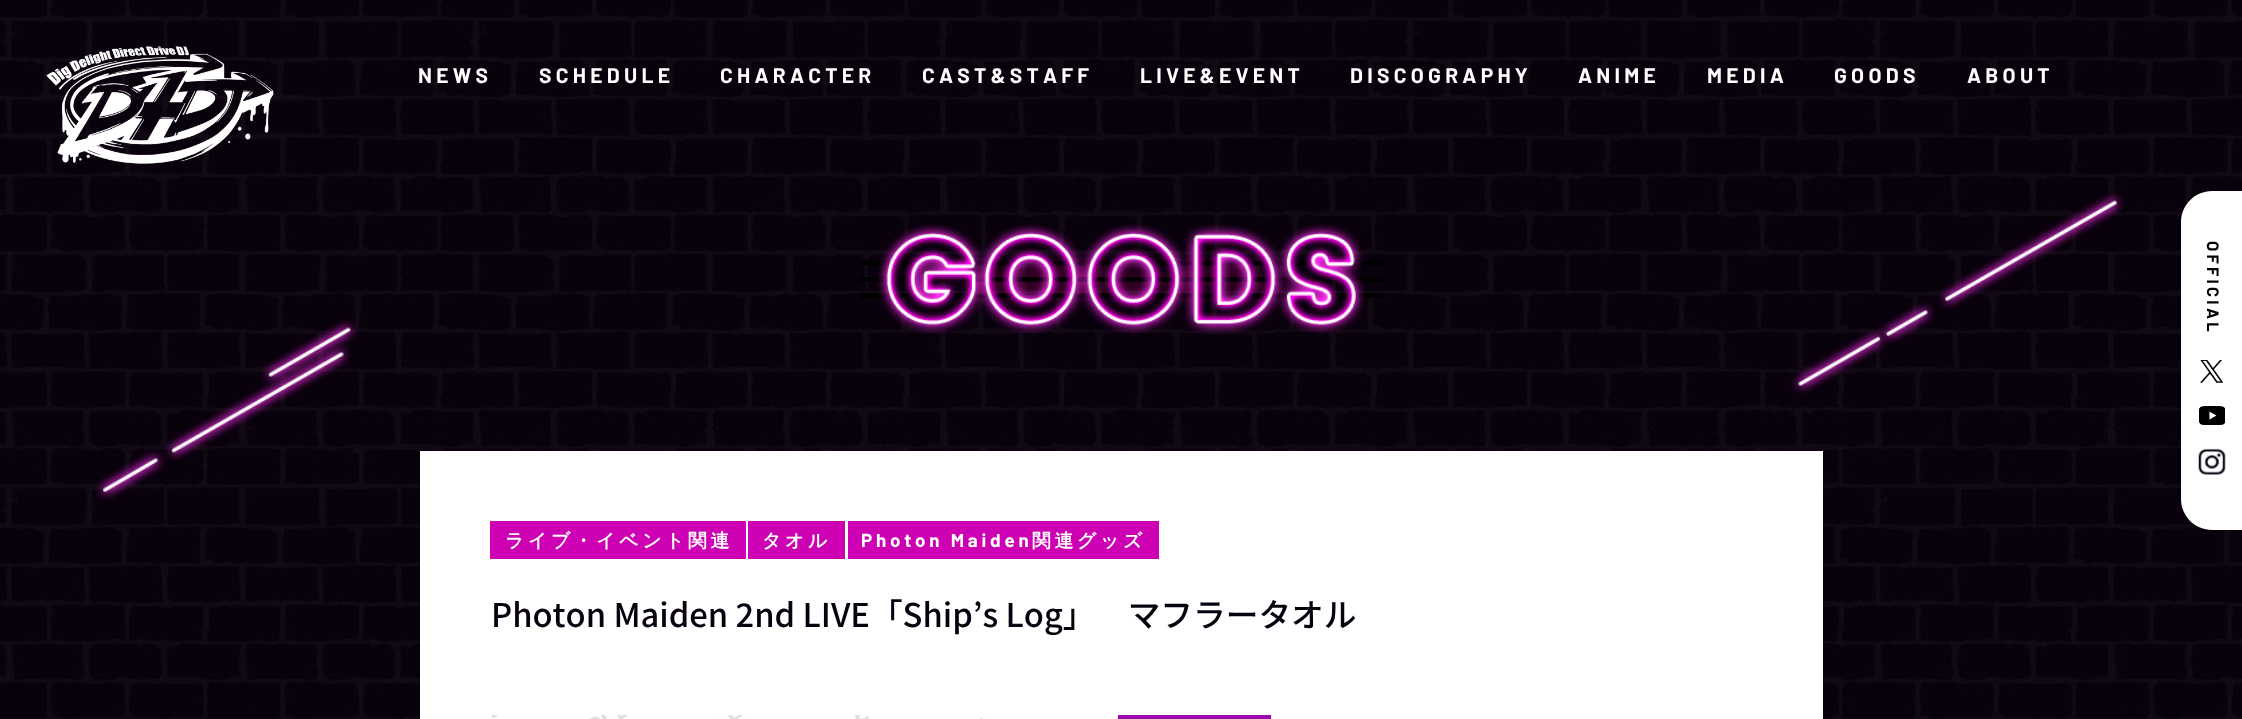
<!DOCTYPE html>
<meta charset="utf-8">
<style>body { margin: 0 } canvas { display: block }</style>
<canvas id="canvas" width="2242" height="719"></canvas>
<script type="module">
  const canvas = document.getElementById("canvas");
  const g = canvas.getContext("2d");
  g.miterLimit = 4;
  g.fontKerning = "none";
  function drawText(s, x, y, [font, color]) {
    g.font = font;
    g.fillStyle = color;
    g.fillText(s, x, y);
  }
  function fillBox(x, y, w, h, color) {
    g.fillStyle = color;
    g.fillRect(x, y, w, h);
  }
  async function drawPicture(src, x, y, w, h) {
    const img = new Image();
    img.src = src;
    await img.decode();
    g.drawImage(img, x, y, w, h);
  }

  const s1 = ["bold 21px Barlow", "#FFFFFF"];
  const s2 = ["bold 18.75px WenQuanYi Zen Hei", "#FFFFFF"];
  const s3 = ["bold 18.75px Barlow", "#FFFFFF"];
  const s4 = ["500 32.7px Noto Sans JP", "#08020F"];

  fillBox(0, 0, 2242, 719, "#FFFFFF");
  await drawPicture("pic5.png", 0, 0, 2242, 719);
  await drawPicture("pic1.png", 46, 46, 228, 118);
  g.letterSpacing = "4.25px";
  drawText("NEWS", 418, 83, s1);
  drawText("SCHEDULE", 539, 83, s1);
  drawText("CHARACTER", 720, 83, s1);
  drawText("CAST&STAFF", 922, 83, s1);
  drawText("LIVE&EVENT", 1140, 83, s1);
  drawText("DISCOGRAPHY", 1350, 83, s1);
  drawText("ANIME", 1578, 83, s1);
  drawText("MEDIA", 1707, 83, s1);
  drawText("GOODS", 1834, 83, s1);
  drawText("ABOUT", 1967, 83, s1);
  g.beginPath();
  g.moveTo(2212, 191);
  g.lineTo(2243, 191);
  g.lineTo(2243, 530);
  g.lineTo(2212, 530);
  g.bezierCurveTo(2195, 530, 2181, 516, 2181, 499);
  g.lineTo(2181, 222);
  g.bezierCurveTo(2181, 205, 2195, 191, 2212, 191);
  g.closePath();
  g.fill();
  g.letterSpacing = "3.25px";
  g.font = "bold 16.5px Barlow";
  g.fillStyle = "#000000";
  g.save();
  g.translate(2207, 241);
  g.rotate(90 * Math.PI / 180);
  g.fillText("OFFICIAL", 0, 0);
  g.restore();
  await drawPicture("pic2.png", 2200, 360, 23, 23);
  await drawPicture("pic3.png", 2199, 406, 26, 19);
  await drawPicture("pic4.png", 2198, 448, 28, 27);
  await drawPicture("pic6.png", 95, 193, 2030, 307);
  await drawPicture("pic7.png", 859, 224, 525, 110);
  fillBox(420, 451, 1403, 268, "#FFFFFF");
  fillBox(490, 521, 256, 38, "#CD00B3");
  g.letterSpacing = "3.75px";
  drawText("ライブ・イベント関連", 505, 547, s2);
  fillBox(748, 521, 97, 38, "#CD00B3");
  drawText("タオル", 762, 547, s2);
  fillBox(848, 521, 311, 38, "#CD00B3");
  drawText("Photon Maiden", 861, 547, s3);
  drawText("関連グッズ", 1032, 547, s2);
  g.letterSpacing = "0px";
  drawText("Photon Maiden 2nd LIVE「Ship’s Log」", 491, 627, s4);
  drawText("　マフラータオル", 1095, 627, s4);
  await drawPicture("pic8.png", 490, 715, 580, 4);
  fillBox(1118, 715, 153, 4, "#9D07AF");
</script>
